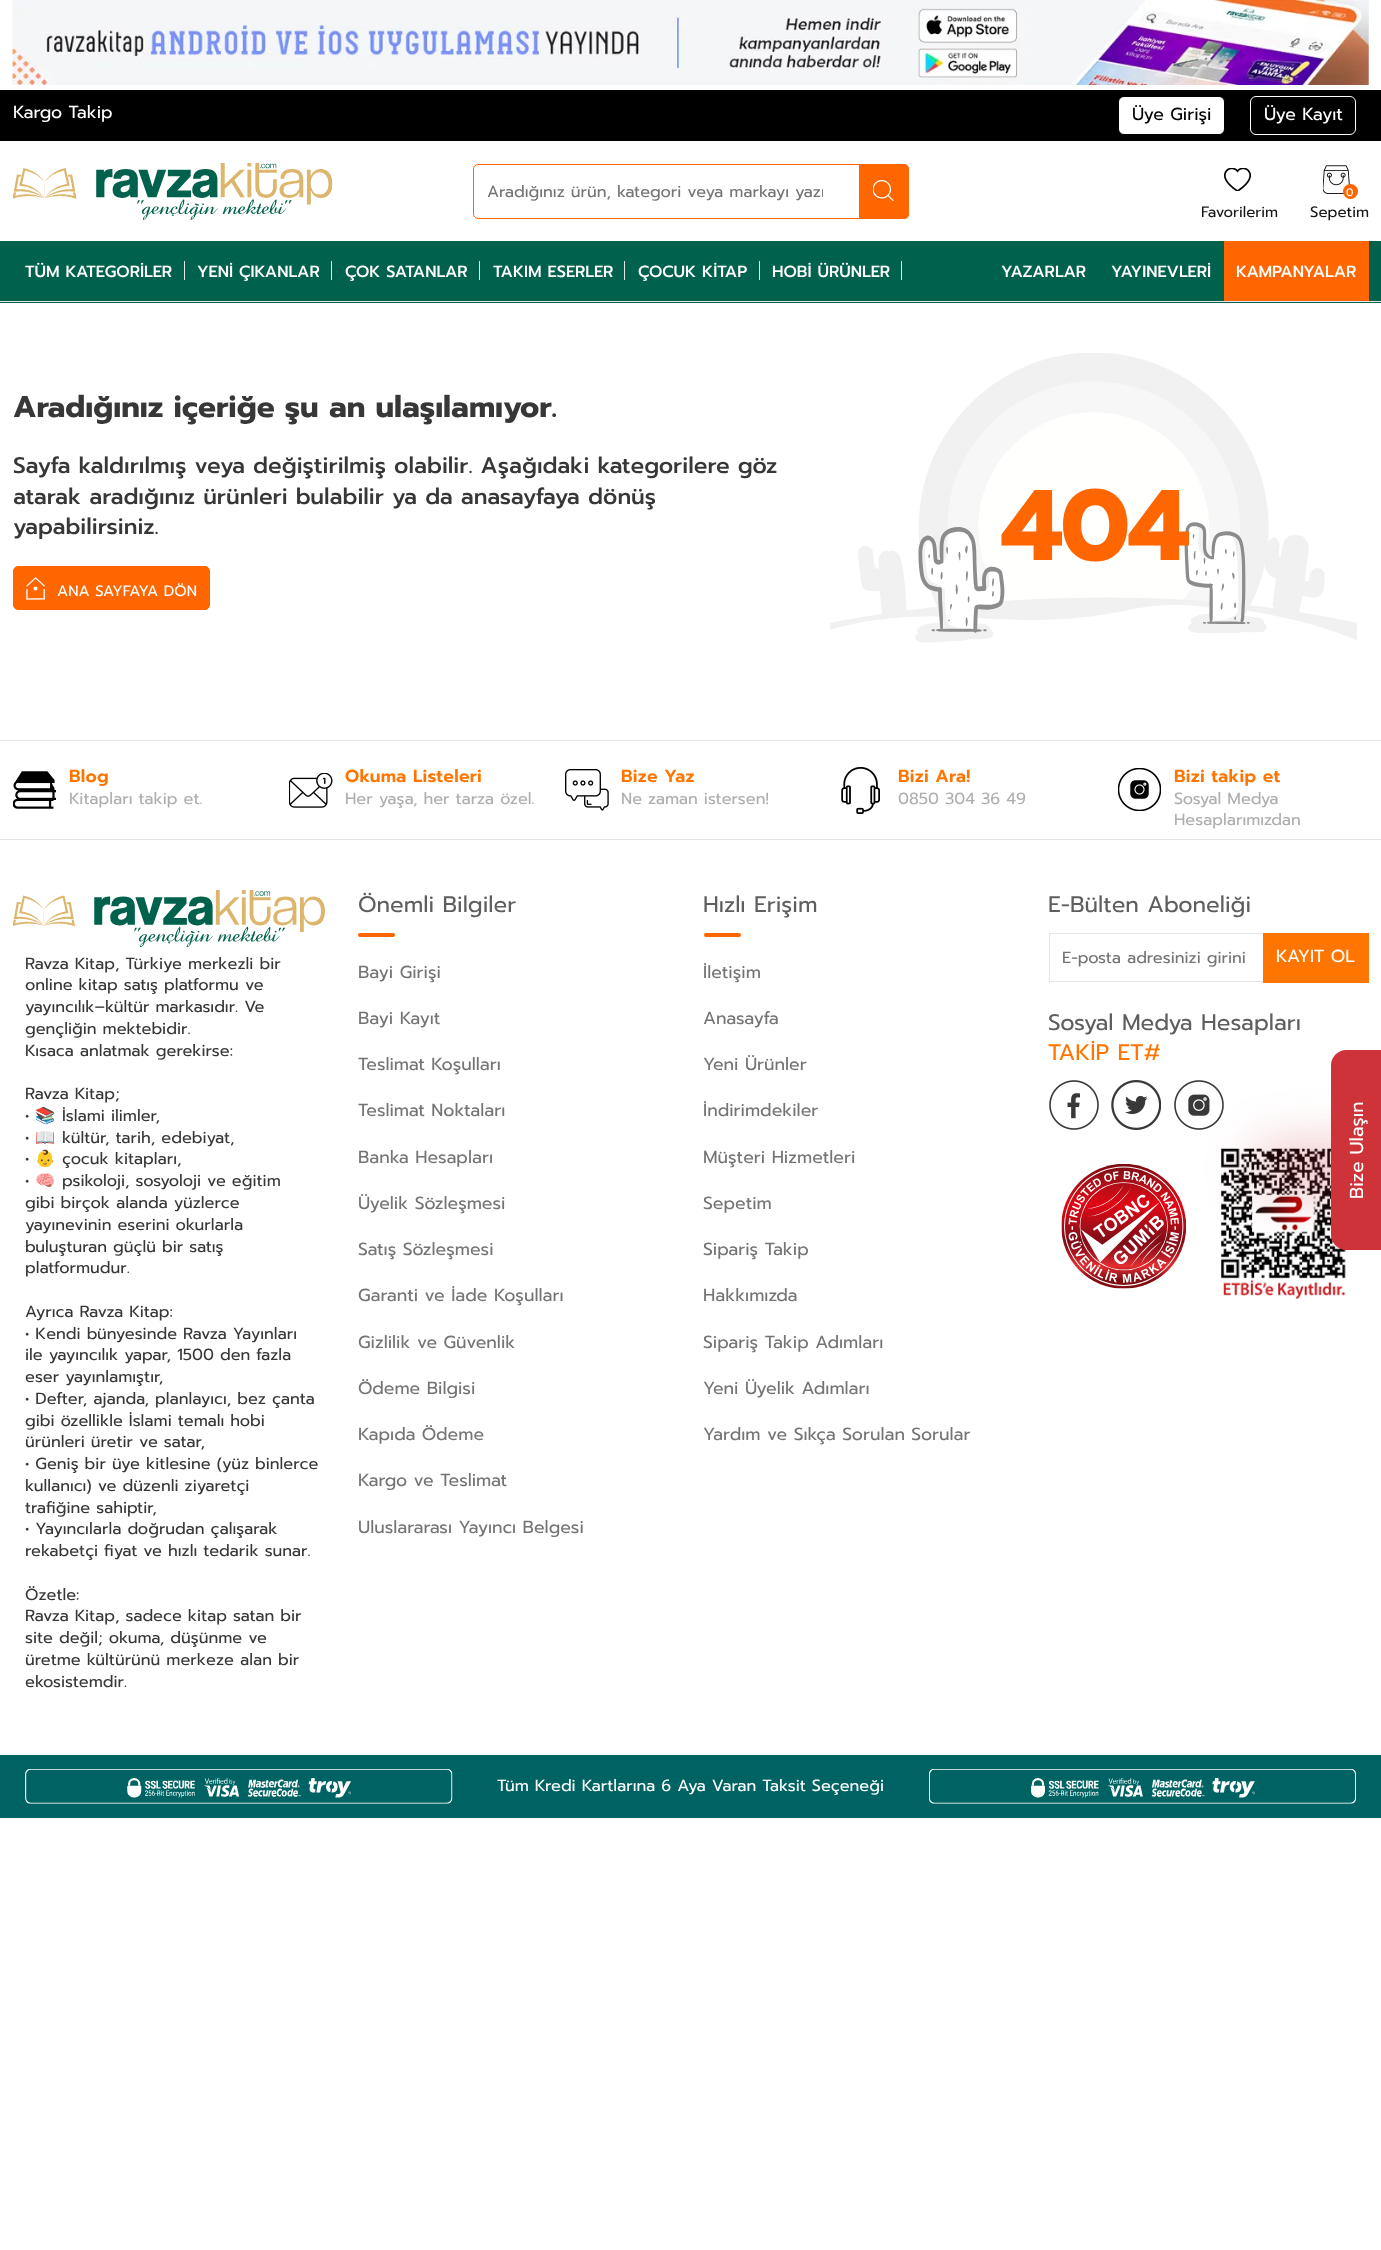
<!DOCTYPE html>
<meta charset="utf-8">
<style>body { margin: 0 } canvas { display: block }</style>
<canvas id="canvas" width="1381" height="2250"></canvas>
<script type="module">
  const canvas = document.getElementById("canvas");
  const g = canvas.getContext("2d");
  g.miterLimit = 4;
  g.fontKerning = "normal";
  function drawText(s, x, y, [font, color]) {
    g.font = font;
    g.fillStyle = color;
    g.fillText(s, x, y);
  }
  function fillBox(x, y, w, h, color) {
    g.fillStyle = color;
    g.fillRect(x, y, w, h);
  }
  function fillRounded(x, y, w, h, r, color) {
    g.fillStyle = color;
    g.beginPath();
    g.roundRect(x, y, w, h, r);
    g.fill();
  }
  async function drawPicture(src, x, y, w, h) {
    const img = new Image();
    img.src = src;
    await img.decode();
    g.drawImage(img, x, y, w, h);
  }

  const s1 = ["17.5px Prompt", "#FFFFFF"];
  const s2 = ["17.5px Prompt", "#000000"];
  const s3 = ["16.25px Prompt", "#747474"];
  const s4 = ["15px Prompt", "#161616"];
  const s5 = ["11px Prompt", "#FFFFFF"];
  const s6 = ["500 16.25px Prompt", "#FFFFFF"];
  const s7 = ["bold 30px Prompt", "#373738"];
  const s8 = ["500 22.5px Prompt", "#373738"];
  const s9 = ["15px Prompt", "#FFFFFF"];
  const s10 = ["bold 100px Prompt", "#FF6600"];
  const s11 = ["600 17.5px Prompt", "#FF7500"];
  const s12 = ["16.25px Prompt", "#AEAEAE"];
  const s13 = ["16.25px Prompt", "#373738"];
  const s14 = ["16.25px Noto Color Emoji", "#373738"];
  const s15 = ["22.5px Prompt", "#5E5E5E"];
  const s16 = ["17.5px Prompt", "#747474"];
  const s17 = ["22.5px Prompt", "#FF7500"];
  const s18 = ["16.25px Prompt", "#FFFFFF"];

  fillBox(0, 0, 1381, 2250, "#FFFFFF");
  await drawPicture("pic1.png", 12, 0, 1357, 85);
  fillBox(0, 90, 1381, 51, "#000000");
  drawText("Kargo Takip", 13, 118, s1);
  g.beginPath();
  g.roundRect(1118.5, 96.5, 106, 38, 5.5);
  g.fill();
  g.strokeStyle = "#000000";
  g.stroke();
  drawText("Üye Girişi", 1132, 120, s2);
  g.beginPath();
  g.roundRect(1250.5, 96.5, 105, 38, 5.5);
  g.strokeStyle = "#FFFFFF";
  g.stroke();
  drawText("Üye Kayıt", 1264, 120, s1);
  await drawPicture("pic2.png", 13, 163, 320, 57);
  g.beginPath();
  g.roundRect(473.5, 164.5, 435, 54, 4.5);
  g.strokeStyle = "#FF6600";
  g.stroke();
  g.save();
  g.beginPath();
  g.rect(486, 179, 337, 24);
  g.clip();
  drawText("Aradığınız ürün, kategori veya markayı yazı", 487, 197, s3);
  g.restore();
  g.fillStyle = "#FF6600";
  g.beginPath();
  g.roundRect(859, 164, 50, 55, [0, 5, 5, 0]);
  g.fill();
  await drawPicture("pic3.png", 873, 180, 21, 21);
  await drawPicture("pic4.png", 1224, 168, 27, 23);
  drawText("Favorilerim", 1201, 217, s4);
  await drawPicture("pic5.png", 1323, 165, 27, 29);
  g.fillStyle = "#FF6600";
  g.beginPath();
  g.arc(1350.5, 191.5, 7.5, 0, Math.PI * 2);
  g.fill();
  drawText("0", 1346, 196, s5);
  drawText("Sepetim", 1310, 217, s4);
  fillBox(0, 241, 1381, 62, "#00614D");
  fillBox(0, 301, 1381, 1, "#E6E6E6");
  drawText("TÜM KATEGORİLER", 25, 277, s6);
  fillBox(184, 261, 1, 19, "#E6E6E6");
  drawText("YENİ ÇIKANLAR", 197, 277, s6);
  fillBox(331, 261, 1, 19, "#E6E6E6");
  drawText("ÇOK SATANLAR", 345, 277, s6);
  fillBox(479, 261, 1, 19, "#E6E6E6");
  drawText("TAKIM ESERLER", 493, 277, s6);
  fillBox(624, 261, 1, 19, "#E6E6E6");
  drawText("ÇOCUK KİTAP", 638, 277, s6);
  fillBox(759, 261, 1, 19, "#E6E6E6");
  drawText("HOBİ ÜRÜNLER", 772, 277, s6);
  fillBox(901, 261, 1, 19, "#E6E6E6");
  drawText("YAZARLAR", 1001, 277, s6);
  drawText("YAYINEVLERİ", 1111, 277, s6);
  fillBox(1224, 241, 145, 60, "#FF6600");
  drawText("KAMPANYALAR", 1236, 277, s6);
  await drawPicture("pic16.png", 1174, 1080, 50, 50);
  await drawPicture("pic17.png", 1061, 1164, 125, 125);
  await drawPicture("pic18.png", 1221, 1148, 125, 151);
  g.fillStyle = "rgba(205, 51, 57, 0.29)";
  g.filter = "blur(25px)";
  g.beginPath();
  g.roundRect(1256, 1144, 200, 50, 15);
  g.fill();
  g.filter = "none";
  g.fillStyle = "#CD3339";
  g.beginPath();
  g.moveTo(1331, 1235);
  g.lineTo(1331, 1065);
  g.bezierCurveTo(1331, 1057, 1338, 1050, 1346, 1050);
  g.lineTo(1381, 1050);
  g.lineTo(1381, 1250);
  g.lineTo(1346, 1250);
  g.bezierCurveTo(1338, 1250, 1331, 1243, 1331, 1235);
  g.closePath();
  g.fill();
  g.font = "18.75px Prompt";
  g.fillStyle = "#FFFFFF";
  g.save();
  g.translate(1363, 1199);
  g.rotate(-90 * Math.PI / 180);
  g.fillText("Bize Ulaşın", 0, 0);
  g.restore();
  drawText("Aradığınız içeriğe şu an ulaşılamıyor.", 13, 417, s7);
  drawText("Sayfa kaldırılmış veya değiştirilmiş olabilir. Aşağıdaki kategorilere göz", 13, 473, s8);
  drawText("atarak aradığınız ürünleri bulabilir ya da anasayfaya dönüş", 13, 504, s8);
  drawText("yapabilirsiniz.", 13, 534, s8);
  g.fillStyle = "#FF6600";
  g.beginPath();
  g.roundRect(13.5, 566.5, 196, 43, 4.5);
  g.fill();
  g.stroke();
  await drawPicture("pic6.png", 26, 577, 19, 23);
  drawText("ANA SAYFAYA DÖN", 57, 596, s9);
  await drawPicture("pic7.png", 830, 353, 527, 290);
  g.letterSpacing = "-2px";
  drawText("404", 1001, 560, s10);
  fillBox(0, 740, 1381, 1, "#E6E6E6");
  fillBox(0, 839, 1381, 1, "#E6E6E6");
  await drawPicture("pic8.png", 13, 771, 43, 38);
  g.letterSpacing = "0.25px";
  drawText("Blog", 69, 782, s11);
  g.letterSpacing = "0px";
  drawText("Kitapları takip et.", 69, 804, s12);
  await drawPicture("pic9.png", 289, 773, 44, 35);
  g.letterSpacing = "0.25px";
  drawText("Okuma Listeleri", 345, 782, s11);
  g.letterSpacing = "0px";
  drawText("Her yaşa, her tarza özel.", 345, 804, s12);
  await drawPicture("pic10.png", 565, 769, 44, 42);
  g.letterSpacing = "0.25px";
  drawText("Bize Yaz", 621, 782, s11);
  g.letterSpacing = "0px";
  drawText("Ne zaman istersen!", 621, 804, s12);
  await drawPicture("pic11.png", 841, 766, 39, 48);
  g.letterSpacing = "0.25px";
  drawText("Bizi Ara!", 898, 782, s11);
  g.letterSpacing = "0px";
  drawText("0850 304 36 49", 898, 804, s12);
  await drawPicture("pic12.png", 1118, 768, 43, 43);
  g.letterSpacing = "0.25px";
  drawText("Bizi takip et", 1174, 782, s11);
  g.letterSpacing = "0px";
  drawText("Sosyal Medya", 1174, 804, s12);
  drawText("Hesaplarımızdan", 1174, 825, s12);
  await drawPicture("pic13.png", 13, 890, 312, 58);
  drawText("Ravza Kitap, Türkiye merkezli bir", 25, 969, s13);
  drawText("online kitap satış platformu ve", 25, 990, s13);
  drawText("yayıncılık–kültür markasıdır. Ve", 25, 1012, s13);
  drawText("gençliğin mektebidir.", 25, 1034, s13);
  drawText("Kısaca anlatmak gerekirse:", 25, 1056, s13);
  drawText("Ravza Kitap;", 25, 1099, s13);
  drawText("•", 25, 1121, s13);
  drawText("📚", 35, 1121, s14);
  drawText("İslami ilimler,", 62, 1121, s13);
  drawText("•", 25, 1143, s13);
  drawText("📖", 35, 1143, s14);
  drawText("kültür, tarih, edebiyat,", 62, 1143, s13);
  drawText("•", 25, 1164, s13);
  drawText("👶", 35, 1164, s14);
  drawText("çocuk kitapları,", 62, 1164, s13);
  drawText("•", 25, 1186, s13);
  drawText("🧠", 35, 1186, s14);
  drawText("psikoloji, sosyoloji ve eğitim", 62, 1186, s13);
  drawText("gibi birçok alanda yüzlerce", 25, 1208, s13);
  drawText("yayınevinin eserini okurlarla", 25, 1230, s13);
  drawText("buluşturan güçlü bir satış", 25, 1252, s13);
  drawText("platformudur.", 25, 1273, s13);
  drawText("Ayrıca Ravza Kitap:", 25, 1317, s13);
  drawText("• Kendi bünyesinde Ravza Yayınları", 25, 1339, s13);
  drawText("ile yayıncılık yapar, 1500 den fazla", 25, 1360, s13);
  drawText("eser yayınlamıştır,", 25, 1382, s13);
  drawText("• Defter, ajanda, planlayıcı, bez çanta", 25, 1404, s13);
  drawText("gibi özellikle İslami temalı hobi", 25, 1426, s13);
  drawText("ürünleri üretir ve satar,", 25, 1447, s13);
  drawText("• Geniş bir üye kitlesine (yüz binlerce", 25, 1469, s13);
  drawText("kullanıcı) ve düzenli ziyaretçi", 25, 1491, s13);
  drawText("trafiğine sahiptir,", 25, 1513, s13);
  drawText("• Yayıncılarla doğrudan çalışarak", 25, 1534, s13);
  drawText("rekabetçi fiyat ve hızlı tedarik sunar.", 25, 1556, s13);
  drawText("Özetle:", 25, 1600, s13);
  drawText("Ravza Kitap, sadece kitap satan bir", 25, 1621, s13);
  drawText("site değil; okuma, düşünme ve", 25, 1643, s13);
  drawText("üretme kültürünü merkeze alan bir", 25, 1665, s13);
  drawText("ekosistemdir.", 25, 1687, s13);
  drawText("Önemli Bilgiler", 358, 912, s15);
  fillRounded(358, 933, 37, 4, 2, "#FF6600");
  drawText("Bayi Girişi", 358, 978, s16);
  drawText("Bayi Kayıt", 358, 1024, s16);
  drawText("Teslimat Koşulları", 358, 1070, s16);
  drawText("Teslimat Noktaları", 358, 1116, s16);
  drawText("Banka Hesapları", 358, 1163, s16);
  drawText("Üyelik Sözleşmesi", 358, 1209, s16);
  drawText("Satış Sözleşmesi", 358, 1255, s16);
  drawText("Garanti ve İade Koşulları", 358, 1301, s16);
  drawText("Gizlilik ve Güvenlik", 358, 1348, s16);
  drawText("Ödeme Bilgisi", 358, 1394, s16);
  drawText("Kapıda Ödeme", 358, 1440, s16);
  drawText("Kargo ve Teslimat", 358, 1486, s16);
  drawText("Uluslararası Yayıncı Belgesi", 358, 1533, s16);
  drawText("Hızlı Erişim", 703, 912, s15);
  fillRounded(704, 933, 37, 4, 2, "#FF6600");
  drawText("İletişim", 703, 978, s16);
  drawText("Anasayfa", 703, 1024, s16);
  drawText("Yeni Ürünler", 703, 1070, s16);
  drawText("İndirimdekiler", 703, 1116, s16);
  drawText("Müşteri Hizmetleri", 703, 1163, s16);
  drawText("Sepetim", 703, 1209, s16);
  drawText("Sipariş Takip", 703, 1255, s16);
  drawText("Hakkımızda", 703, 1301, s16);
  drawText("Sipariş Takip Adımları", 703, 1348, s16);
  drawText("Yeni Üyelik Adımları", 703, 1394, s16);
  drawText("Yardım ve Sıkça Sorulan Sorular", 703, 1440, s16);
  drawText("E-Bülten Aboneliği", 1048, 912, s15);
  fillBox(1049, 933, 214, 1, "#E6E6E6");
  fillBox(1049, 981, 214, 1, "#E6E6E6");
  fillBox(1049, 933, 1, 50, "#E6E6E6");
  drawText("E-posta adresinizi girini", 1062, 963, s3);
  fillBox(1263, 933, 106, 50, "#FF7500");
  drawText("KAYIT OL", 1276, 962, s1);
  drawText("Sosyal Medya Hesapları", 1048, 1030, s15);
  drawText("TAKİP ET#", 1048, 1060, s17);
  await drawPicture("pic14.png", 1049, 1080, 50, 50);
  await drawPicture("pic15.png", 1111, 1080, 50, 50);
  fillBox(0, 1755, 1381, 63, "#006363");
  await drawPicture("pic19.png", 25, 1769, 428, 35);
  drawText("Tüm Kredi Kartlarına 6 Aya Varan Taksit Seçeneği", 497, 1791, s18);
  await drawPicture("pic20.png", 929, 1769, 427, 35);
</script>
